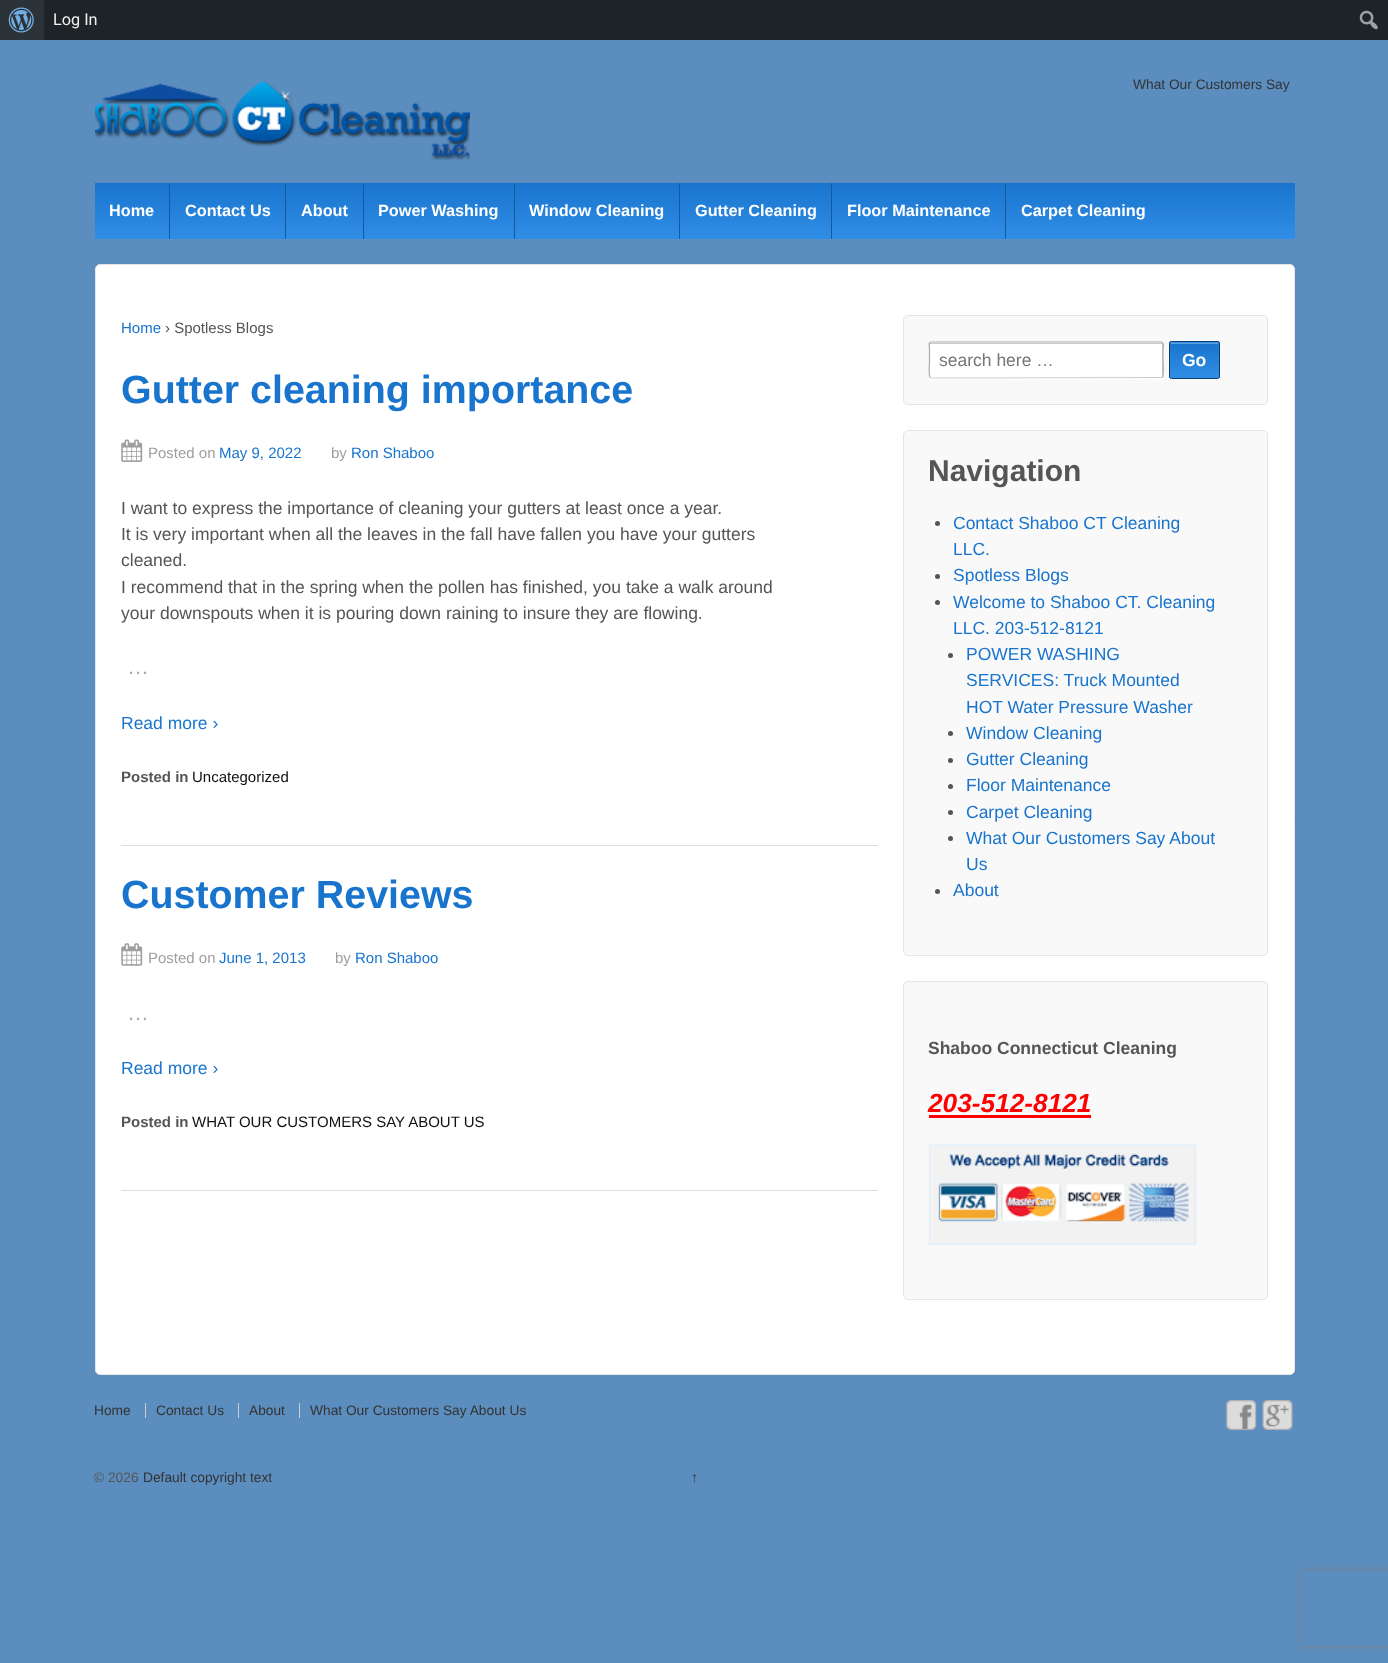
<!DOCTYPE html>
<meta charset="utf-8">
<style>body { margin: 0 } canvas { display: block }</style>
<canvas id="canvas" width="1388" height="1663"></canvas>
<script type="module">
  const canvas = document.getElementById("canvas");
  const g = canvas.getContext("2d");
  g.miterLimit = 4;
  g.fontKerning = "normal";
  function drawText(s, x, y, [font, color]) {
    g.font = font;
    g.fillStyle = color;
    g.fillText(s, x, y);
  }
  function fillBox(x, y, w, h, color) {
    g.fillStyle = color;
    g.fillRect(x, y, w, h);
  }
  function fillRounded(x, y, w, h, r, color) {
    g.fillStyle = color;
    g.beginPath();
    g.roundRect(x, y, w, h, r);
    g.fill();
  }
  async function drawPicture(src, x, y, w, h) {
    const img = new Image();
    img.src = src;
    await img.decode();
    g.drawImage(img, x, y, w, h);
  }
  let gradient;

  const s1 = ["16.25px Roboto", "#F0F0F1"];
  const s2 = ["13.75px Liberation Sans", "#333333"];
  const s3 = ["bold 16.25px Liberation Sans", "#FFFFFF"];
  const s4 = ["15px Liberation Sans", "#1874CD"];
  const s5 = ["15px Liberation Sans", "#555555"];
  const s6 = ["bold 39.4px Liberation Sans", "#1874CD"];
  const s7 = ["15px Liberation Sans", "#9F9F9F"];
  const s8 = ["17.5px Liberation Sans", "#555555"];
  const s9 = ["22px Liberation Sans", "#AAAAAA"];
  const s10 = ["17.5px Liberation Sans", "#1874CD"];
  const s11 = ["bold 15px Liberation Sans", "#555555"];
  const s12 = ["15px Liberation Sans", "#111111"];
  const s13 = ["17.5px Liberation Sans", "#757575"];
  const s14 = ["bold 17.5px Liberation Sans", "#FFFFFF"];
  const s15 = ["bold 30px Liberation Sans", "#555555"];
  const s16 = ["bold 17.5px Liberation Sans", "#555555"];
  const s17 = ["italic bold 26.25px Liberation Sans", "#FF0000"];
  const s18 = ["13.75px Liberation Sans", "#555555"];

  fillBox(0, 0, 1388, 1663, "#5B8DBF");
  fillBox(44, 0, 1344, 40, "#1D2327");
  fillBox(0, 0, 44, 40, "#2C3338");
  await drawPicture("pic1.png", 8, 7, 26, 26);
  drawText("Log In", 53, 25, s1);
  await drawPicture("pic2.png", 1359, 10, 19, 20);
  await drawPicture("pic3.png", 95, 81, 375, 79);
  drawText("What Our Customers Say", 1133, 89, s2);
  gradient = g.createLinearGradient(695, 239, 695, 183);
  gradient.addColorStop(0, "#318EE7");
  gradient.addColorStop(1, "#1874CD");
  g.fillStyle = gradient;
  g.fillRect(95, 183, 1200, 56);
  drawText("Home", 109, 216, s3);
  fillBox(169, 183, 1, 56, "#135A9F");
  drawText("Contact Us", 185, 216, s3);
  fillBox(285, 183, 1, 56, "#135A9F");
  drawText("About", 301, 216, s3);
  fillBox(363, 183, 1, 56, "#135A9F");
  drawText("Power Washing", 378, 216, s3);
  fillBox(514, 183, 1, 56, "#135A9F");
  drawText("Window Cleaning", 529, 216, s3);
  fillBox(679, 183, 1, 56, "#135A9F");
  drawText("Gutter Cleaning", 695, 216, s3);
  fillBox(831, 183, 1, 56, "#135A9F");
  drawText("Floor Maintenance", 847, 216, s3);
  fillBox(1005, 183, 1, 56, "#135A9F");
  drawText("Carpet Cleaning", 1021, 216, s3);
  g.beginPath();
  g.roundRect(95.5, 264.5, 1199, 1110, 4.5);
  g.fill();
  g.strokeStyle = "#E5E5E5";
  g.stroke();
  drawText("Home", 121, 333, s4);
  drawText("› Spotless Blogs", 165, 333, s5);
  drawText("Gutter cleaning importance", 121, 403, s6);
  await drawPicture("pic4.png", 121, 439, 22, 23);
  drawText("Posted on", 148, 458, s7);
  drawText("May 9, 2022", 219, 458, s4);
  drawText("by", 331, 458, s7);
  drawText("Ron Shaboo", 351, 458, s4);
  drawText("I want to express the importance of cleaning your gutters at least once a year.", 121, 514, s8);
  drawText("It is very important when all the leaves in the fall have fallen you have your gutters", 121, 540, s8);
  drawText("cleaned.", 121, 566, s8);
  drawText("I recommend that in the spring when the pollen has finished, you take a walk around", 121, 593, s8);
  drawText("your downspouts when it is pouring down raining to insure they are flowing.", 121, 619, s8);
  drawText("…", 127, 674, s9);
  drawText("Read more ›", 121, 729, s10);
  drawText("Posted in", 121, 782, s11);
  drawText("Uncategorized", 192, 782, s12);
  fillBox(121, 845, 757, 1, "#DDDDDD");
  drawText("Customer Reviews", 121, 908, s6);
  await drawPicture("pic5.png", 121, 943, 22, 23);
  drawText("Posted on", 148, 963, s7);
  drawText("June 1, 2013", 219, 963, s4);
  drawText("by", 335, 963, s7);
  drawText("Ron Shaboo", 355, 963, s4);
  drawText("…", 127, 1020, s9);
  drawText("Read more ›", 121, 1074, s10);
  drawText("Posted in", 121, 1127, s11);
  drawText("WHAT OUR CUSTOMERS SAY ABOUT US", 192, 1127, s12);
  fillBox(121, 1190, 757, 1, "#DDDDDD");
  g.fillStyle = "#F9F9F9";
  g.beginPath();
  g.roundRect(903.5, 315.5, 364, 89, 4.5);
  g.fill();
  g.stroke();
  g.fillStyle = "#FFFFFF";
  g.beginPath();
  g.moveTo(929, 377);
  g.lineTo(929, 378);
  g.bezierCurveTo(929, 379, 930, 380, 932, 380);
  g.lineTo(1162, 380);
  g.bezierCurveTo(1163, 380, 1164, 379, 1164, 378);
  g.lineTo(1164, 344);
  g.lineTo(1164, 376);
  g.bezierCurveTo(1164, 378, 1163, 379, 1161, 379);
  g.lineTo(931, 379);
  g.bezierCurveTo(930, 379, 929, 378, 929, 377);
  g.closePath();
  g.fill();
  fillRounded(929, 341, 235, 38, 2.5, "#FFFFFF");
  g.fillStyle = "#CCCCCC";
  g.beginPath();
  g.moveTo(931, 344);
  g.lineTo(1161, 344);
  g.bezierCurveTo(1162, 344, 1162, 344, 1162, 345);
  g.lineTo(1162, 378);
  g.lineTo(1163, 377);
  g.lineTo(1163, 344);
  g.lineTo(1162, 343);
  g.lineTo(930, 343);
  g.lineTo(930, 345);
  g.closePath();
  g.fill();
  g.beginPath();
  g.moveTo(1162.5, 377.5);
  g.lineTo(969.5, 378);
  g.lineTo(931, 378);
  g.lineTo(930, 377.5);
  g.strokeStyle = "#CCCCCC";
  g.lineWidth = 1.2;
  g.stroke();
  g.beginPath();
  g.moveTo(930, 377.5);
  g.bezierCurveTo(928.5, 376, 929.5, 362.5, 929.5, 360);
  g.lineTo(929.5, 349);
  g.bezierCurveTo(929.5, 348.5, 928, 342, 931, 342);
  g.lineTo(1161, 342);
  g.bezierCurveTo(1164.5, 342, 1163, 348.5, 1163, 349);
  g.lineTo(1163, 360);
  g.bezierCurveTo(1163, 362.5, 1164, 376, 1162.5, 377.5);
  g.strokeStyle = "#AAAAAA";
  g.stroke();
  drawText("search here …", 939, 366, s13);
  g.save();
  g.beginPath();
  g.roundRect(1169, 341, 51, 38, 2.5);
  g.clip();
  gradient = g.createLinearGradient(1194, 343, 1194, 308);
  gradient.addColorStop(0, "#318EE7");
  gradient.addColorStop(1, "#1874CD");
  g.fillStyle = gradient;
  g.fillRect(1169, 341, 51, 2);
  g.restore();
  gradient = g.createLinearGradient(1194, 378, 1194, 343);
  gradient.addColorStop(0, "#318EE7");
  gradient.addColorStop(1, "#1874CD");
  g.fillStyle = gradient;
  g.fillRect(1169, 343, 51, 35);
  g.fillStyle = "#5D9EDC";
  g.beginPath();
  g.moveTo(1171, 344);
  g.lineTo(1218, 344);
  g.lineTo(1219, 346);
  g.bezierCurveTo(1219, 341, 1216, 343, 1210, 343);
  g.lineTo(1179, 343);
  g.bezierCurveTo(1175, 343, 1170, 341, 1170, 345);
  g.closePath();
  g.moveTo(1219, 377);
  g.lineTo(1219, 377);
  g.closePath();
  g.fill("evenodd");
  g.beginPath();
  g.roundRect(1169.5, 341.5, 50, 37, 2);
  g.strokeStyle = "#0D4072";
  g.lineWidth = 1;
  g.stroke();
  drawText("Go", 1182, 366, s14);
  g.fillStyle = "#F9F9F9";
  g.beginPath();
  g.roundRect(903.5, 430.5, 364, 525, 4.5);
  g.fill();
  g.strokeStyle = "#E5E5E5";
  g.stroke();
  drawText("Navigation", 928, 481, s15);
  g.beginPath();
  g.arc(937.5, 523.5, 2.5, 0, Math.PI * 2);
  g.fill();
  drawText("Contact Shaboo CT Cleaning", 953, 529, s10);
  drawText("LLC.", 953, 555, s10);
  g.fillStyle = "#555555";
  g.beginPath();
  g.arc(937.5, 576.5, 2.5, 0, Math.PI * 2);
  g.fill();
  drawText("Spotless Blogs", 953, 581, s10);
  g.fillStyle = "#555555";
  g.beginPath();
  g.arc(937.5, 602.5, 2.5, 0, Math.PI * 2);
  g.fill();
  drawText("Welcome to Shaboo CT. Cleaning", 953, 608, s10);
  drawText("LLC. 203-512-8121", 953, 634, s10);
  g.fillStyle = "#555555";
  g.beginPath();
  g.arc(950.5, 655.5, 2.5, 0, Math.PI * 2);
  g.fill();
  drawText("POWER WASHING", 966, 660, s10);
  drawText("SERVICES: Truck Mounted", 966, 686, s10);
  drawText("HOT Water Pressure Washer", 966, 713, s10);
  g.fillStyle = "#555555";
  g.beginPath();
  g.arc(950.5, 733.5, 2.5, 0, Math.PI * 2);
  g.fill();
  drawText("Window Cleaning", 966, 739, s10);
  g.fillStyle = "#555555";
  g.beginPath();
  g.arc(950.5, 760.5, 2.5, 0, Math.PI * 2);
  g.fill();
  drawText("Gutter Cleaning", 966, 765, s10);
  g.fillStyle = "#555555";
  g.beginPath();
  g.arc(950.5, 786.5, 2.5, 0, Math.PI * 2);
  g.fill();
  drawText("Floor Maintenance", 966, 791, s10);
  g.fillStyle = "#555555";
  g.beginPath();
  g.arc(950.5, 812.5, 2.5, 0, Math.PI * 2);
  g.fill();
  drawText("Carpet Cleaning", 966, 818, s10);
  g.fillStyle = "#555555";
  g.beginPath();
  g.arc(950.5, 838.5, 2.5, 0, Math.PI * 2);
  g.fill();
  drawText("What Our Customers Say About", 966, 844, s10);
  drawText("Us", 966, 870, s10);
  g.fillStyle = "#555555";
  g.beginPath();
  g.arc(937.5, 891.5, 2.5, 0, Math.PI * 2);
  g.fill();
  drawText("About", 953, 896, s10);
  g.fillStyle = "#F9F9F9";
  g.beginPath();
  g.roundRect(903.5, 981.5, 364, 318, 4.5);
  g.fill();
  g.stroke();
  drawText("Shaboo Connecticut Cleaning", 928, 1054, s16);
  drawText("203-512-8121", 928, 1112, s17);
  fillBox(929, 1115, 162, 3, "#FF0000");
  await drawPicture("pic6.png", 928, 1143, 269, 102);
  drawText("Home", 94, 1415, s2);
  drawText("Contact Us", 156, 1415, s2);
  fillBox(145, 1403, 1, 15, "#CCCCCC");
  drawText("About", 249, 1415, s2);
  fillBox(238, 1403, 1, 15, "#CCCCCC");
  drawText("What Our Customers Say About Us", 310, 1415, s2);
  fillBox(299, 1403, 1, 15, "#CCCCCC");
  await drawPicture("pic7.png", 1226, 1400, 31, 30);
  await drawPicture("pic8.png", 1262, 1400, 31, 30);
  drawText("© 2026", 94, 1482, s18);
  drawText("Default copyright text", 143, 1482, s2);
  drawText("↑", 691, 1482, s2);
  g.save();
  g.beginPath();
  g.moveTo(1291, 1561);
  g.lineTo(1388, 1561);
  g.lineTo(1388, 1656);
  g.lineTo(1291, 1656);
  g.closePath();
  g.moveTo(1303.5, 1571);
  g.lineTo(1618.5, 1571);
  g.bezierCurveTo(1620, 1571, 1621, 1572, 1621, 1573.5);
  g.lineTo(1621, 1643.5);
  g.bezierCurveTo(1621, 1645, 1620, 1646, 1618.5, 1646);
  g.lineTo(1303.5, 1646);
  g.bezierCurveTo(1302, 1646, 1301, 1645, 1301, 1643.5);
  g.lineTo(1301, 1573.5);
  g.bezierCurveTo(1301, 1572, 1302, 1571, 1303.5, 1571);
  g.closePath();
  g.clip("evenodd");
  g.fillStyle = "#808080";
  g.filter = "blur(3px)";
  g.beginPath();
  g.roundRect(1301, 1571, 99, 75, 2.5);
  g.fill();
  g.filter = "none";
  g.restore();
</script>
